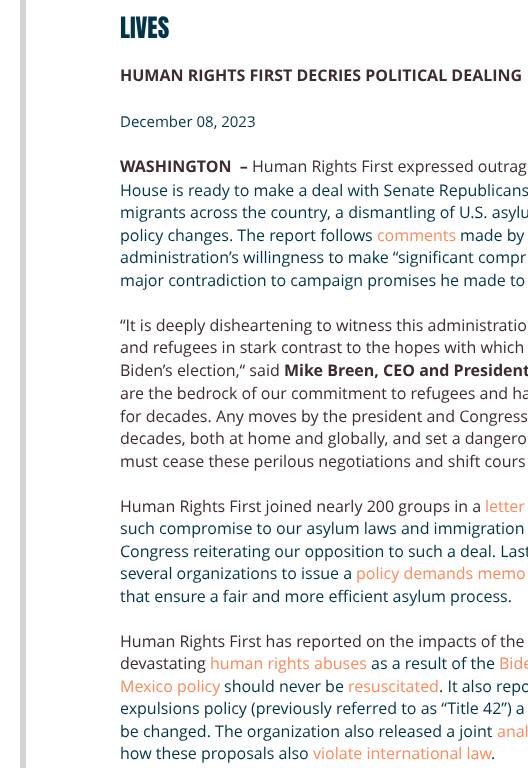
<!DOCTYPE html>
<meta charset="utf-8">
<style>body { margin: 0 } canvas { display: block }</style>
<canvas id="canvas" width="528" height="768"></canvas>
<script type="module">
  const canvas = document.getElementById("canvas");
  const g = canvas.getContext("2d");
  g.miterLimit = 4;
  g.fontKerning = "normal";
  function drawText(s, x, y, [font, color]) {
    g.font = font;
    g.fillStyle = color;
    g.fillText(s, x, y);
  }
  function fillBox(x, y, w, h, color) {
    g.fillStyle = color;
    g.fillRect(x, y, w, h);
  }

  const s1 = ["25px Anton", "#003448"];
  const s2 = ["bold 16px Open Sans", "#3E2B2F"];
  const s3 = ["15px Open Sans", "#003448"];
  const s4 = ["16px Open Sans", "#3E2B2F"];
  const s5 = ["16px Open Sans", "#003448"];
  const s6 = ["16px Open Sans", "#FF895A"];

  fillBox(0, 0, 528, 768, "#FFFFFF");
  g.strokeStyle = "#D4D4D4";
  g.lineWidth = 6;
  g.strokeRect(23, -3, 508, 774);
  drawText("LIVES", 120, 38, s1);
  drawText("HUMAN RIGHTS FIRST DECRIES POLITICAL DEALING", 120, 81, s2);
  drawText("December 08, 2023", 120, 127, s3);
  drawText("WASHINGTON  –", 120, 172, s2);
  drawText("Human Rights First expressed outrag", 252, 172, s4);
  drawText("House is ready to make a deal with Senate Republicans", 120, 196, s5);
  drawText("migrants across the country, a dismantling of U.S. asylu", 120, 218, s5);
  drawText("policy changes. The report follows", 120, 241, s5);
  drawText("comments", 377, 241, s6);
  drawText("made by", 460, 241, s5);
  drawText("administration’s willingness to make “significant compr", 120, 263, s5);
  drawText("major contradiction to campaign promises he made to", 120, 286, s5);
  drawText("“It is deeply disheartening to witness this administratio", 120, 331, s4);
  drawText("and refugees in stark contrast to the hopes with which", 120, 353, s4);
  drawText("Biden’s election,“ said", 120, 376, s4);
  drawText("Mike Breen, CEO and President", 284, 376, s2);
  drawText("are the bedrock of our commitment to refugees and ha", 120, 399, s4);
  drawText("for decades. Any moves by the president and Congress", 120, 422, s4);
  drawText("decades, both at home and globally, and set a dangero", 120, 444, s4);
  drawText("must cease these perilous negotiations and shift cours", 120, 467, s4);
  drawText("Human Rights First joined nearly 200 groups in a", 120, 512, s4);
  drawText("letter", 485, 512, s6);
  drawText("such compromise to our asylum laws and immigration", 120, 534, s5);
  drawText("Congress reiterating our opposition to such a deal. Last", 120, 557, s5);
  drawText("several organizations to issue a", 120, 579, s5);
  drawText("policy demands memo", 356, 579, s6);
  drawText("that ensure a fair and more efficient asylum process.", 120, 602, s5);
  drawText("Human Rights First has reported on the impacts of the", 120, 647, s4);
  drawText("devastating", 120, 669, s4);
  drawText("human rights abuses", 210, 669, s6);
  drawText("as a result of the", 371, 669, s5);
  drawText("Bide", 499, 669, s6);
  drawText("Mexico policy", 120, 692, s6);
  drawText("should never be", 224, 692, s5);
  drawText("resuscitated", 348, 692, s6);
  drawText(". It also repo", 439, 692, s5);
  drawText("expulsions policy (previously referred to as “Title 42”) a", 120, 714, s5);
  drawText("be changed. The organization also released a joint", 120, 737, s5);
  drawText("anal", 497, 737, s6);
  drawText("how these proposals also", 120, 759, s5);
  drawText("violate international law", 313, 759, s6);
  drawText(".", 491, 759, s5);
</script>
